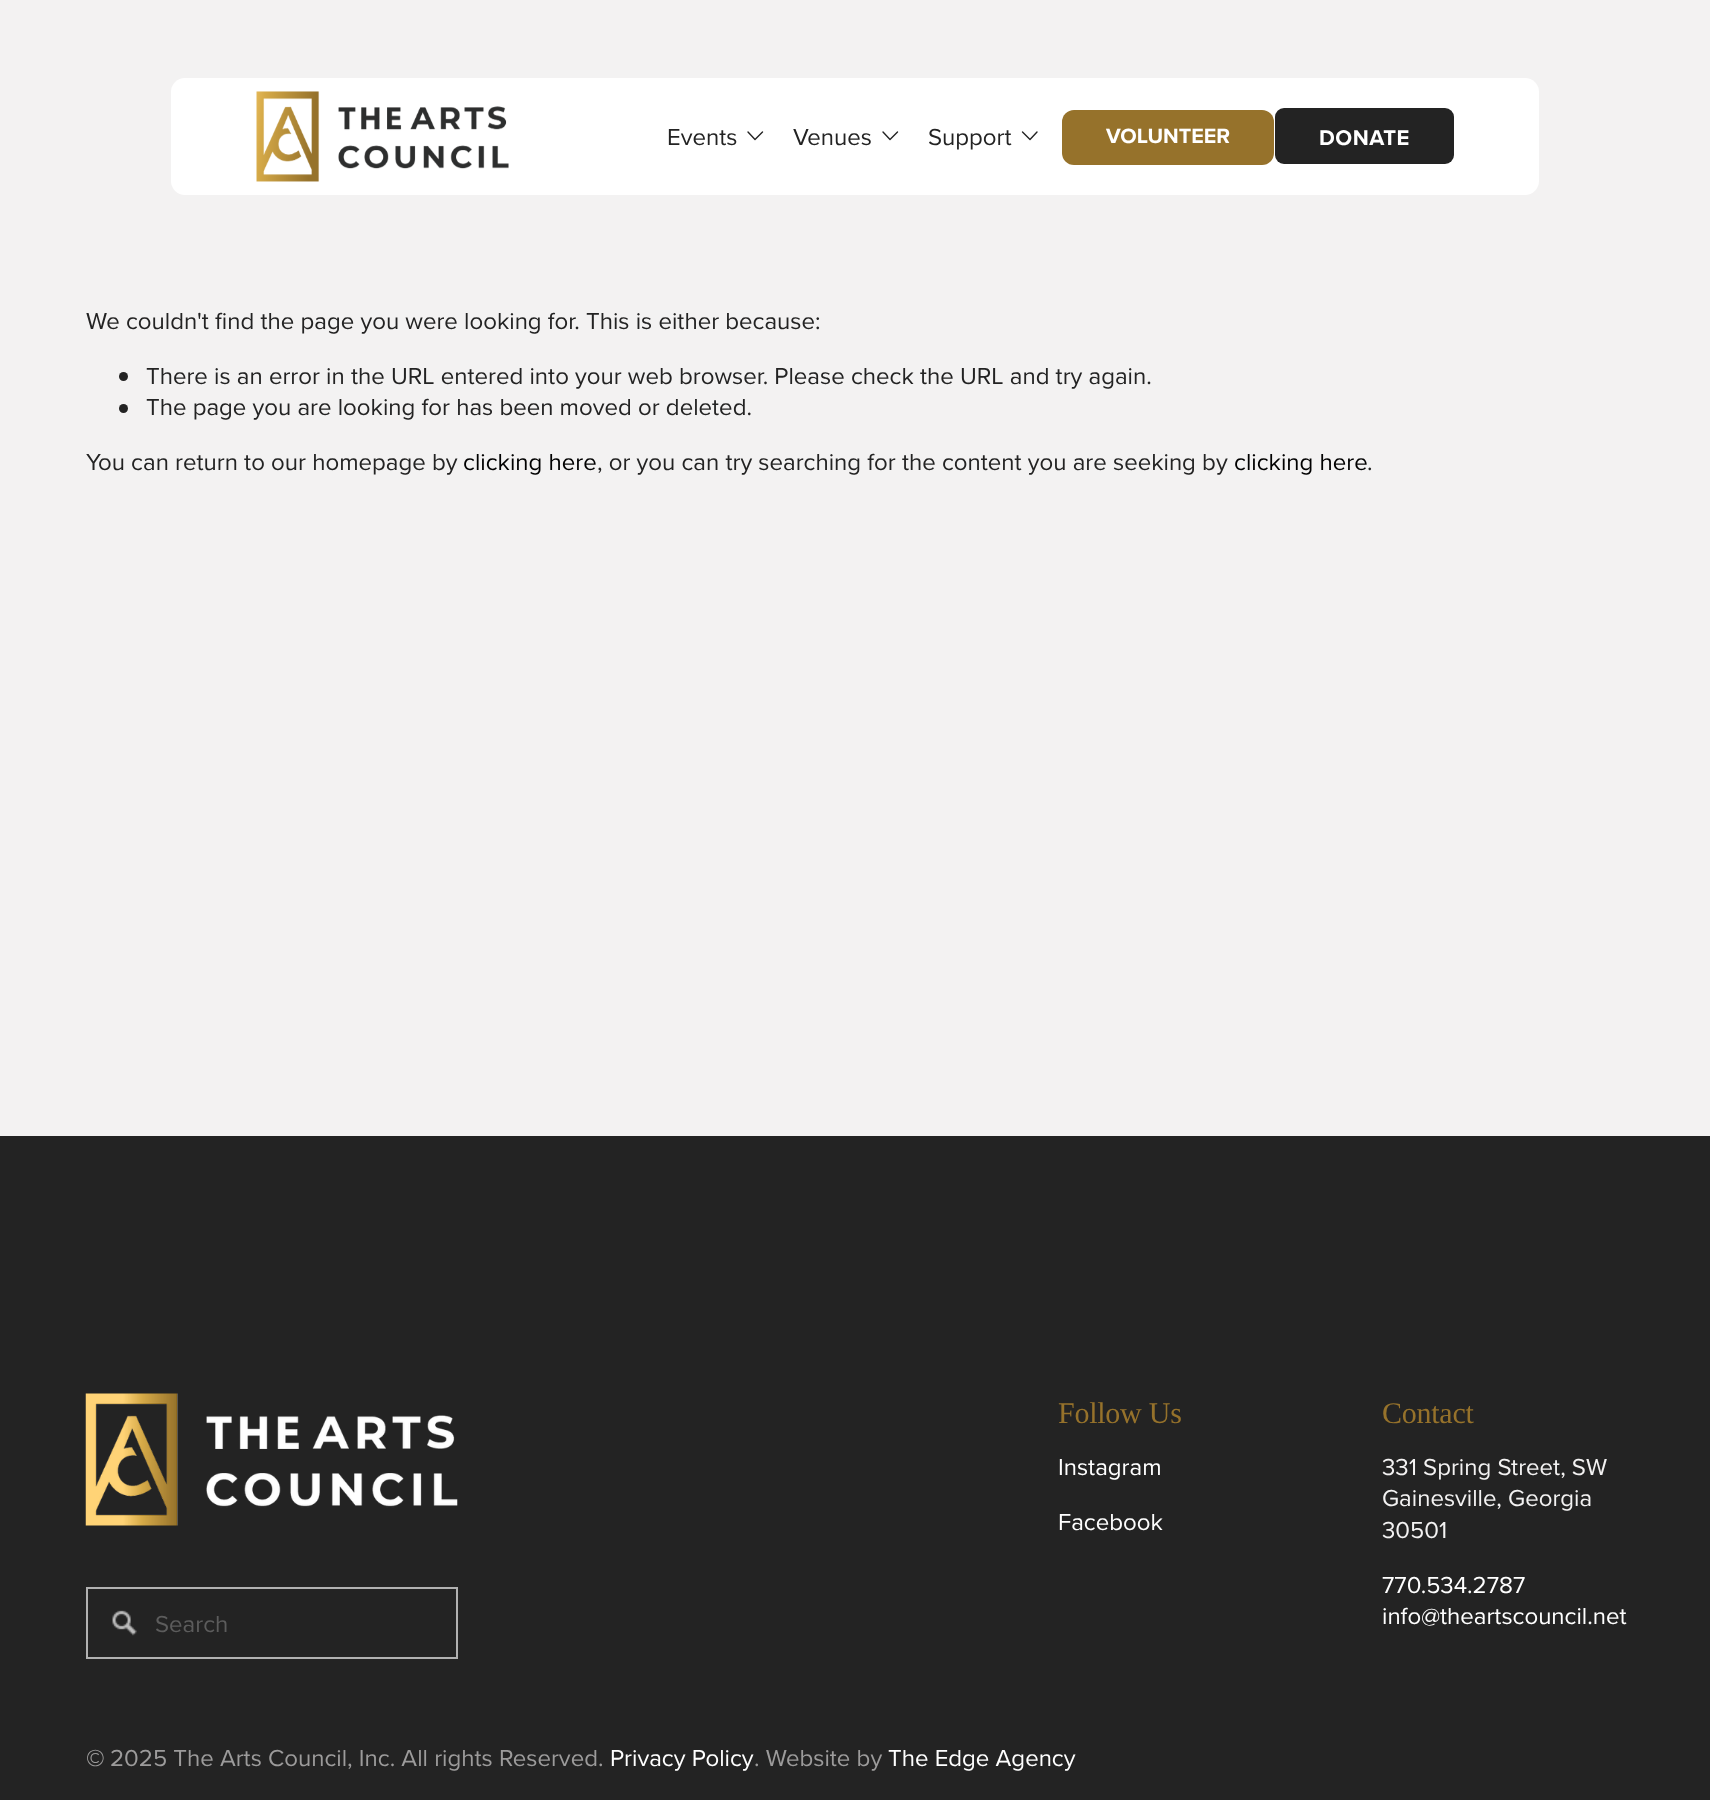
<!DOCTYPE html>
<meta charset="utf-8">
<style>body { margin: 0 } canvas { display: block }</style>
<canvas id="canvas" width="1710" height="1800"></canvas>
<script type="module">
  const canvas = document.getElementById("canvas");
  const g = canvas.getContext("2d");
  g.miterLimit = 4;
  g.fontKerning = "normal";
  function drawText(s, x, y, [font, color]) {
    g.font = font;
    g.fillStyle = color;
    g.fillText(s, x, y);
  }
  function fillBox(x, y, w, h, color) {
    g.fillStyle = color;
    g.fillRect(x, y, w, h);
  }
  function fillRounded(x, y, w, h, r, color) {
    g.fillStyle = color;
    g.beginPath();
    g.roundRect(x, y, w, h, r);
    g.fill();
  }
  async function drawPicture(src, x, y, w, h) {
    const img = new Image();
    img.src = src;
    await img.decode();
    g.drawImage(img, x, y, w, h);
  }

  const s1 = ["24px Proxima Nova", "#232323"];
  const s2 = ["bold 21.5px Proxima Nova", "#FFFFFF"];
  const s3 = ["bold 22px Proxima Nova", "#FFFFFF"];
  const s4 = ["24px Proxima Nova", "#000000"];
  const s5 = ["30px Liberation Serif", "#96722B"];
  const s6 = ["24px Proxima Nova", "#FFFFFF"];
  const s7 = ["24px Proxima Nova", "#F3F2F2"];
  const s8 = ["24px Proxima Nova", "#5C5C5C"];
  const s9 = ["bold 24px Proxima Nova", "#9C9B9B"];
  const s10 = ["24px Proxima Nova", "#9C9B9B"];

  fillBox(0, 0, 1710, 1800, "#F3F2F2");
  fillRounded(171, 78, 1368, 117, 14, "#FFFFFF");
  await drawPicture("pic1.png", 256, 91, 253, 91);
  drawText("Events", 667, 145, s1);
  g.beginPath();
  g.moveTo(762.5, 132);
  g.lineTo(755, 139.5);
  g.lineTo(748, 132);
  g.strokeStyle = "#232323";
  g.lineWidth = 1.4;
  g.lineCap = "round";
  g.lineJoin = "round";
  g.stroke();
  drawText("Venues", 793, 145, s1);
  g.beginPath();
  g.moveTo(897.5, 132);
  g.lineTo(890, 139.5);
  g.lineTo(883, 132);
  g.stroke();
  drawText("Support", 928, 145, s1);
  g.beginPath();
  g.moveTo(1037, 132);
  g.lineTo(1030, 139.5);
  g.lineTo(1022.5, 132);
  g.stroke();
  fillRounded(1062, 110, 212, 55, 12, "#96722B");
  drawText("VOLUNTEER", 1106, 143, s2);
  fillRounded(1275, 108, 179, 56, 9, "#232323");
  g.letterSpacing = "0.5px";
  drawText("DONATE", 1319, 145, s3);
  g.letterSpacing = "0px";
  drawText("We couldn't find the page you were looking for. This is either because:", 86, 329, s1);
  g.beginPath();
  g.arc(123.5, 376.5, 4.5, 0, Math.PI * 2);
  g.fill();
  drawText("There is an error in the URL entered into your web browser. Please check the URL and try again.", 146, 384, s1);
  g.beginPath();
  g.arc(123.5, 408.5, 4.5, 0, Math.PI * 2);
  g.fill();
  drawText("The page you are looking for has been moved or deleted.", 146, 415, s1);
  drawText("You can return to our homepage by", 86, 470, s1);
  drawText("clicking here", 463, 470, s4);
  drawText(", or you can try searching for the content you are seeking by", 597, 470, s1);
  drawText("clicking here", 1234, 470, s4);
  drawText(".", 1367, 470, s1);
  fillBox(0, 1136, 1710, 664, "#232323");
  await drawPicture("pic2.png", 85, 1393, 373, 133);
  g.letterSpacing = "-0.25px";
  drawText("Follow Us", 1058, 1423, s5);
  drawText("Contact", 1382, 1423, s5);
  g.letterSpacing = "0px";
  drawText("Instagram", 1058, 1475, s6);
  drawText("Facebook", 1058, 1530, s6);
  drawText("331 Spring Street, SW", 1382, 1475, s7);
  drawText("Gainesville, Georgia", 1382, 1506, s7);
  drawText("30501", 1382, 1538, s7);
  drawText("770.534.2787", 1382, 1593, s6);
  drawText("info@theartscouncil.net", 1382, 1624, s6);
  await drawPicture("pic3.png", 112, 1610, 25, 26);
  g.strokeStyle = "#B1B1B1";
  g.lineWidth = 2;
  g.lineJoin = "miter";
  g.strokeRect(87, 1588, 370, 70);
  drawText("Search", 155, 1632, s8);
  drawText("©", 86, 1766, s9);
  drawText("2025 The Arts Council, Inc. All rights Reserved.", 110, 1766, s10);
  drawText("Privacy Policy", 610, 1766, s6);
  drawText(". Website by", 754, 1766, s10);
  drawText("The Edge Agency", 888, 1766, s6);
</script>
